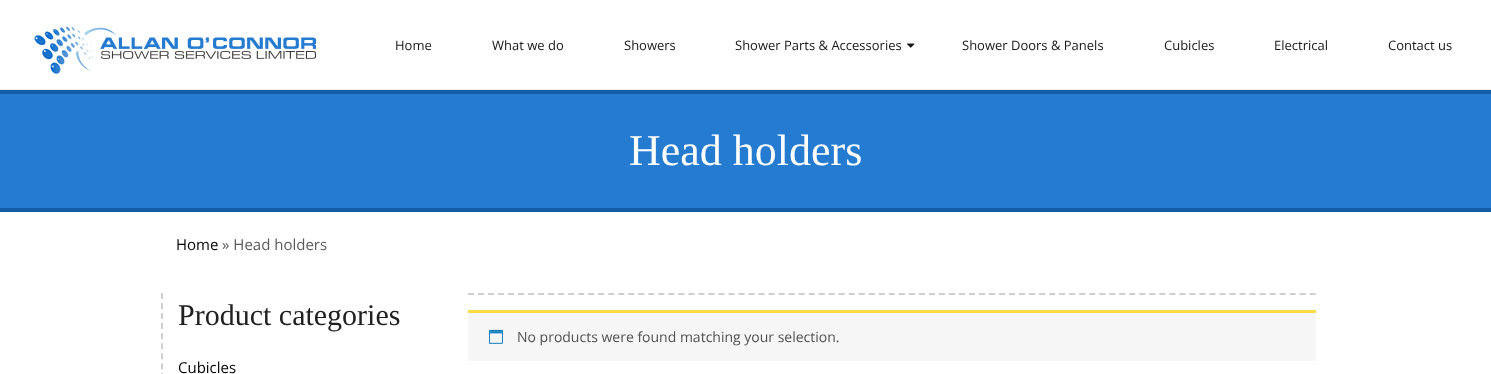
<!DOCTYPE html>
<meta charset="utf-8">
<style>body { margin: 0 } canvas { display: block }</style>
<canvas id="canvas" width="1491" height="374"></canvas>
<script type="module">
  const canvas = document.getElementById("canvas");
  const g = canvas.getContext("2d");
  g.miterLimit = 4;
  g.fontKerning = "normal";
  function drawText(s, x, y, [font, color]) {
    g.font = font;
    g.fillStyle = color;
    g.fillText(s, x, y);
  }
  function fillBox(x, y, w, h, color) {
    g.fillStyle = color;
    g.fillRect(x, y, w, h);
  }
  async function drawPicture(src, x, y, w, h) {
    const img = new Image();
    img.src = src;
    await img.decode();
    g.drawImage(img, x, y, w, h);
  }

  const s1 = ["13px Open Sans", "#171717"];
  const s2 = ["44px Liberation Serif", "#FFFFFF"];
  const s3 = ["15px Open Sans", "#000000"];
  const s4 = ["15px Open Sans", "#5B5A5A"];
  const s5 = ["30px Liberation Serif", "#202020"];
  const s6 = ["14px Open Sans", "#515151"];

  fillBox(0, 0, 1491, 374, "#FFFFFF");
  fillBox(0, 89, 1491, 1, "#F0F0F0");
  await drawPicture("pic1.png", 34, 26, 283, 48);
  drawText("Home", 395, 50, s1);
  drawText("What we do", 492, 50, s1);
  drawText("Showers", 624, 50, s1);
  drawText("Shower Parts & Accessories", 735, 50, s1);
  await drawPicture("pic2.png", 907, 43, 8, 5);
  drawText("Shower Doors & Panels", 962, 50, s1);
  drawText("Cubicles", 1164, 50, s1);
  drawText("Electrical", 1274, 50, s1);
  drawText("Contact us", 1388, 50, s1);
  fillBox(0, 94, 1491, 114, "#257BD0");
  fillBox(0, 90, 1491, 4, "#135DA7");
  fillBox(0, 208, 1491, 4, "#135DA7");
  drawText("Head holders", 629, 165, s2);
  drawText("Home", 176, 250, s3);
  drawText("» Head holders", 222, 250, s4);
  g.beginPath();
  g.moveTo(162, 293);
  g.lineTo(162, 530);
  g.strokeStyle = "#CFCFCF";
  g.lineWidth = 2;
  g.setLineDash([6, 4.04]);
  g.stroke();
  drawText("Product categories", 178, 325, s5);
  drawText("Cubicles", 178, 373, s3);
  g.beginPath();
  g.moveTo(468, 294);
  g.lineTo(1316, 294);
  g.setLineDash([6, 4.02]);
  g.stroke();
  fillBox(468, 313, 848, 48, "#F7F6F7");
  fillBox(468, 310, 848, 3, "#F8DD47");
  await drawPicture("pic3.png", 489, 329, 14, 15);
  drawText("No products were found matching your selection.", 517, 342, s6);
</script>
